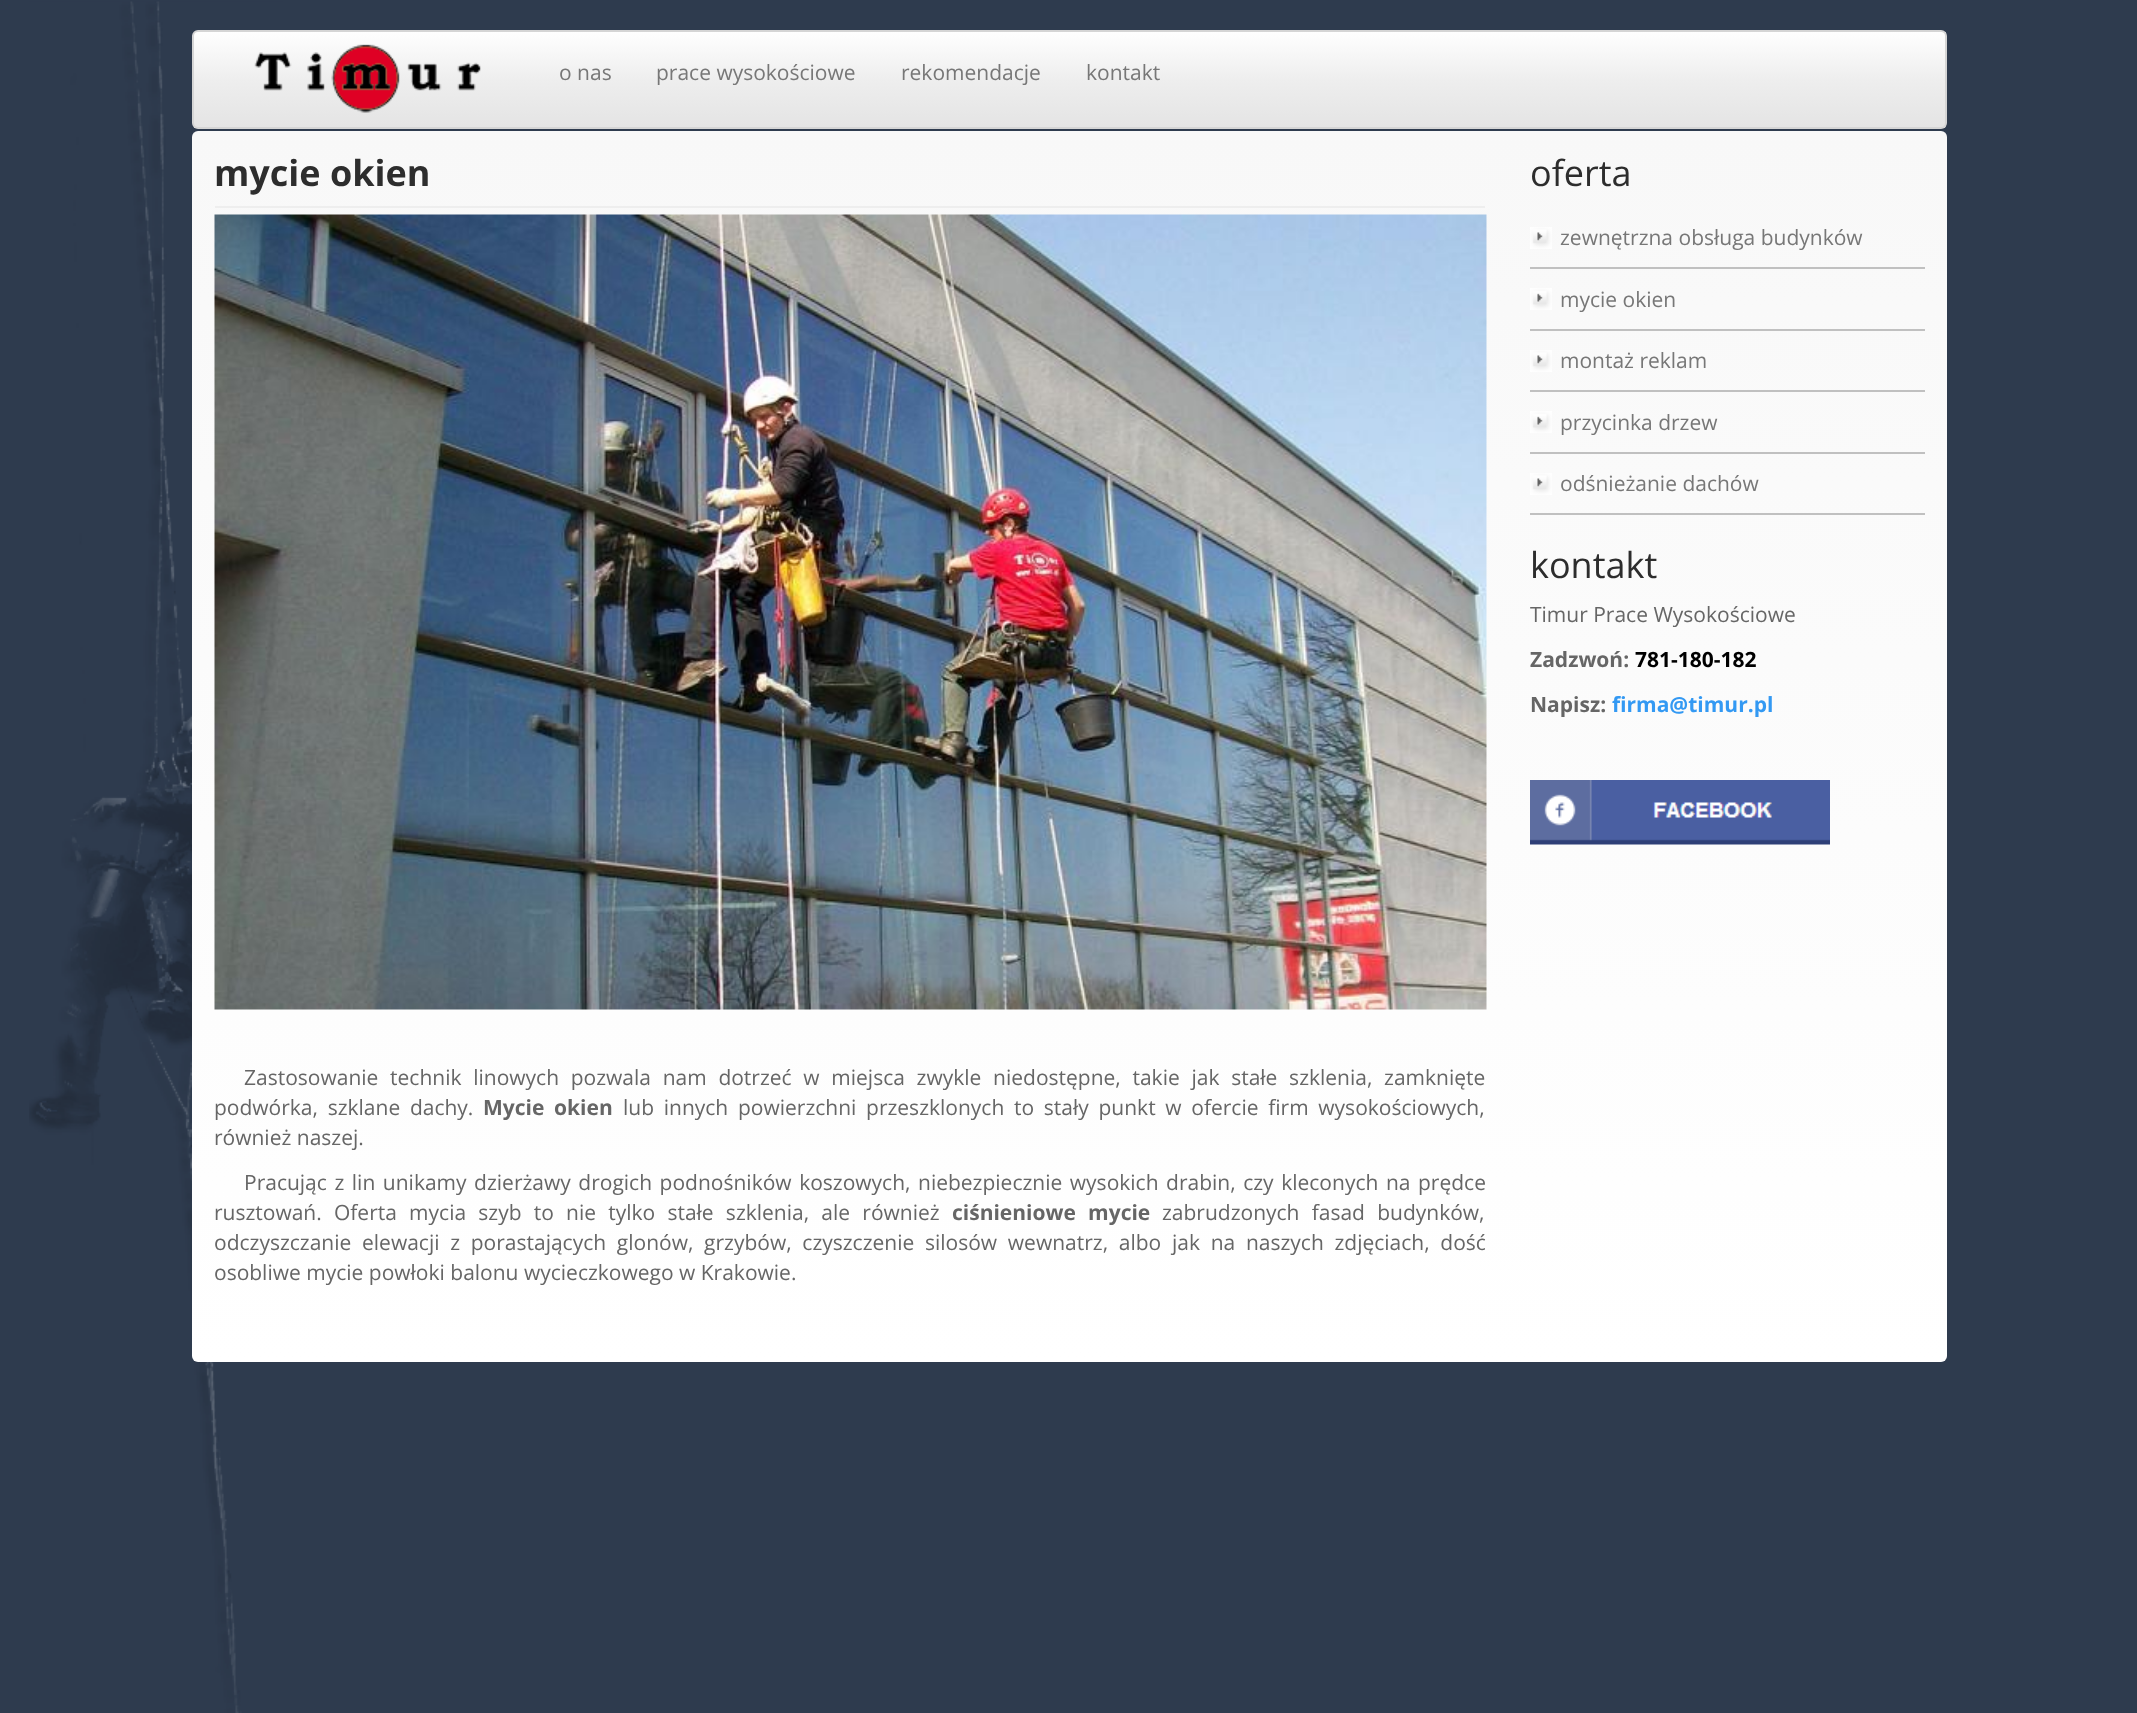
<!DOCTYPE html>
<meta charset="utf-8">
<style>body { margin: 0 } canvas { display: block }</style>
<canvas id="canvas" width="2137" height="1713"></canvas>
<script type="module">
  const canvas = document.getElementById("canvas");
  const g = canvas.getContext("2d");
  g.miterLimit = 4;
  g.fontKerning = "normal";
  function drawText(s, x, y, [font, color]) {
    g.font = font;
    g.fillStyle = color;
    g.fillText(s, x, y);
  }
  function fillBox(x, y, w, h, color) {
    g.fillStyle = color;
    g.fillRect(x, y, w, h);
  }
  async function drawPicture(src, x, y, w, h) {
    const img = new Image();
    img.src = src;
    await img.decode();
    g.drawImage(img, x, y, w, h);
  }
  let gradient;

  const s1 = ["21px Open Sans", "#777777"];
  const s2 = ["bold 36px Open Sans", "#2D2D2D"];
  const s3 = ["21px Open Sans", "#666666"];
  const s4 = ["bold 21px Open Sans", "#666666"];
  const s5 = ["36px Open Sans", "#2D2D2D"];
  const s6 = ["bold 21px Open Sans", "#000000"];
  const s7 = ["bold 21px Open Sans", "#3399F3"];

  fillBox(0, 0, 2137, 1713, "#2E3B4E");
  await drawPicture("pic1.png", 29, 1, 254, 1712);
  g.save();
  g.beginPath();
  g.roundRect(192, 30, 1755, 99, 6);
  g.clip();
  gradient = g.createLinearGradient(1070, 31, 1070, 128);
  gradient.addColorStop(0, "#FFFFFF");
  gradient.addColorStop(0.5, "#EEEEEE");
  gradient.addColorStop(1, "#E4E4E4");
  g.fillStyle = gradient;
  g.fillRect(194, 32, 1752, 96);
  g.restore();
  g.beginPath();
  g.roundRect(193, 31, 1753, 97, 5);
  g.strokeStyle = "#D5D5D5";
  g.lineWidth = 2;
  g.stroke();
  await drawPicture("pic2.png", 254, 44, 227, 69);
  drawText("o nas", 559, 80, s1);
  drawText("prace wysokościowe", 656, 80, s1);
  drawText("rekomendacje", 901, 80, s1);
  drawText("kontakt", 1086, 80, s1);
  gradient = g.createLinearGradient(1070, 130, 1070, 1362);
  gradient.addColorStop(0, "#F8F8F8");
  gradient.addColorStop(1, "#FFFFFF");
  g.fillStyle = gradient;
  g.beginPath();
  g.roundRect(192, 131, 1755, 1231, 6);
  g.fill();
  fillBox(215, 206, 1270, 2, "#EEEEEE");
  drawText("mycie okien", 214, 186, s2);
  await drawPicture("pic3.png", 214, 214, 1273, 796);
  g.wordSpacing = "6.25px";
  drawText("Zastosowanie technik linowych pozwala nam dotrzeć w miejsca zwykle niedostępne, takie jak stałe szklenia, zamknięte", 244, 1085, s3);
  g.wordSpacing = "4.25px";
  drawText("podwórka, szklane dachy.", 214, 1115, s3);
  drawText("Mycie okien", 483, 1115, s4);
  drawText("lub innych powierzchni przeszklonych to stały punkt w ofercie firm wysokościowych,", 623, 1115, s3);
  g.wordSpacing = "0px";
  drawText("również naszej.", 214, 1145, s3);
  g.wordSpacing = "2.1px";
  drawText("Pracując z lin unikamy dzierżawy drogich podnośników koszowych, niebezpiecznie wysokich drabin, czy kleconych na prędce", 244, 1190, s3);
  g.wordSpacing = "6.75px";
  drawText("rusztowań. Oferta mycia szyb to nie tylko stałe szklenia, ale również", 214, 1220, s3);
  drawText("ciśnieniowe mycie", 952, 1220, s4);
  drawText("zabrudzonych fasad budynków,", 1162, 1220, s3);
  g.wordSpacing = "5.25px";
  drawText("odczyszczanie elewacji z porastających glonów, grzybów, czyszczenie silosów wewnatrz, albo jak na naszych zdjęciach, dość", 214, 1250, s3);
  g.wordSpacing = "0px";
  drawText("osobliwe mycie powłoki balonu wycieczkowego w Krakowie.", 214, 1280, s3);
  drawText("oferta", 1530, 186, s5);
  await drawPicture("pic4.png", 1530, 227, 22, 22);
  fillBox(1530, 267, 395, 2, "#C0C0C0");
  drawText("zewnętrzna obsługa budynków", 1560, 245, s1);
  await drawPicture("pic5.png", 1530, 288, 22, 22);
  fillBox(1530, 329, 395, 2, "#C0C0C0");
  drawText("mycie okien", 1560, 307, s1);
  await drawPicture("pic4.png", 1530, 350, 22, 22);
  fillBox(1530, 390, 395, 2, "#C0C0C0");
  drawText("montaż reklam", 1560, 368, s1);
  await drawPicture("pic5.png", 1530, 411, 22, 22);
  fillBox(1530, 452, 395, 2, "#C0C0C0");
  drawText("przycinka drzew", 1560, 430, s1);
  await drawPicture("pic4.png", 1530, 473, 22, 22);
  fillBox(1530, 513, 395, 2, "#C0C0C0");
  drawText("odśnieżanie dachów", 1560, 491, s1);
  drawText("kontakt", 1530, 578, s5);
  drawText("Timur Prace Wysokościowe", 1530, 622, s3);
  drawText("Zadzwoń:", 1530, 667, s4);
  drawText("781-180-182", 1635, 667, s6);
  drawText("Napisz:", 1530, 712, s4);
  drawText("firma@timur.pl", 1612, 712, s7);
  await drawPicture("pic6.png", 1530, 780, 300, 65);
</script>
